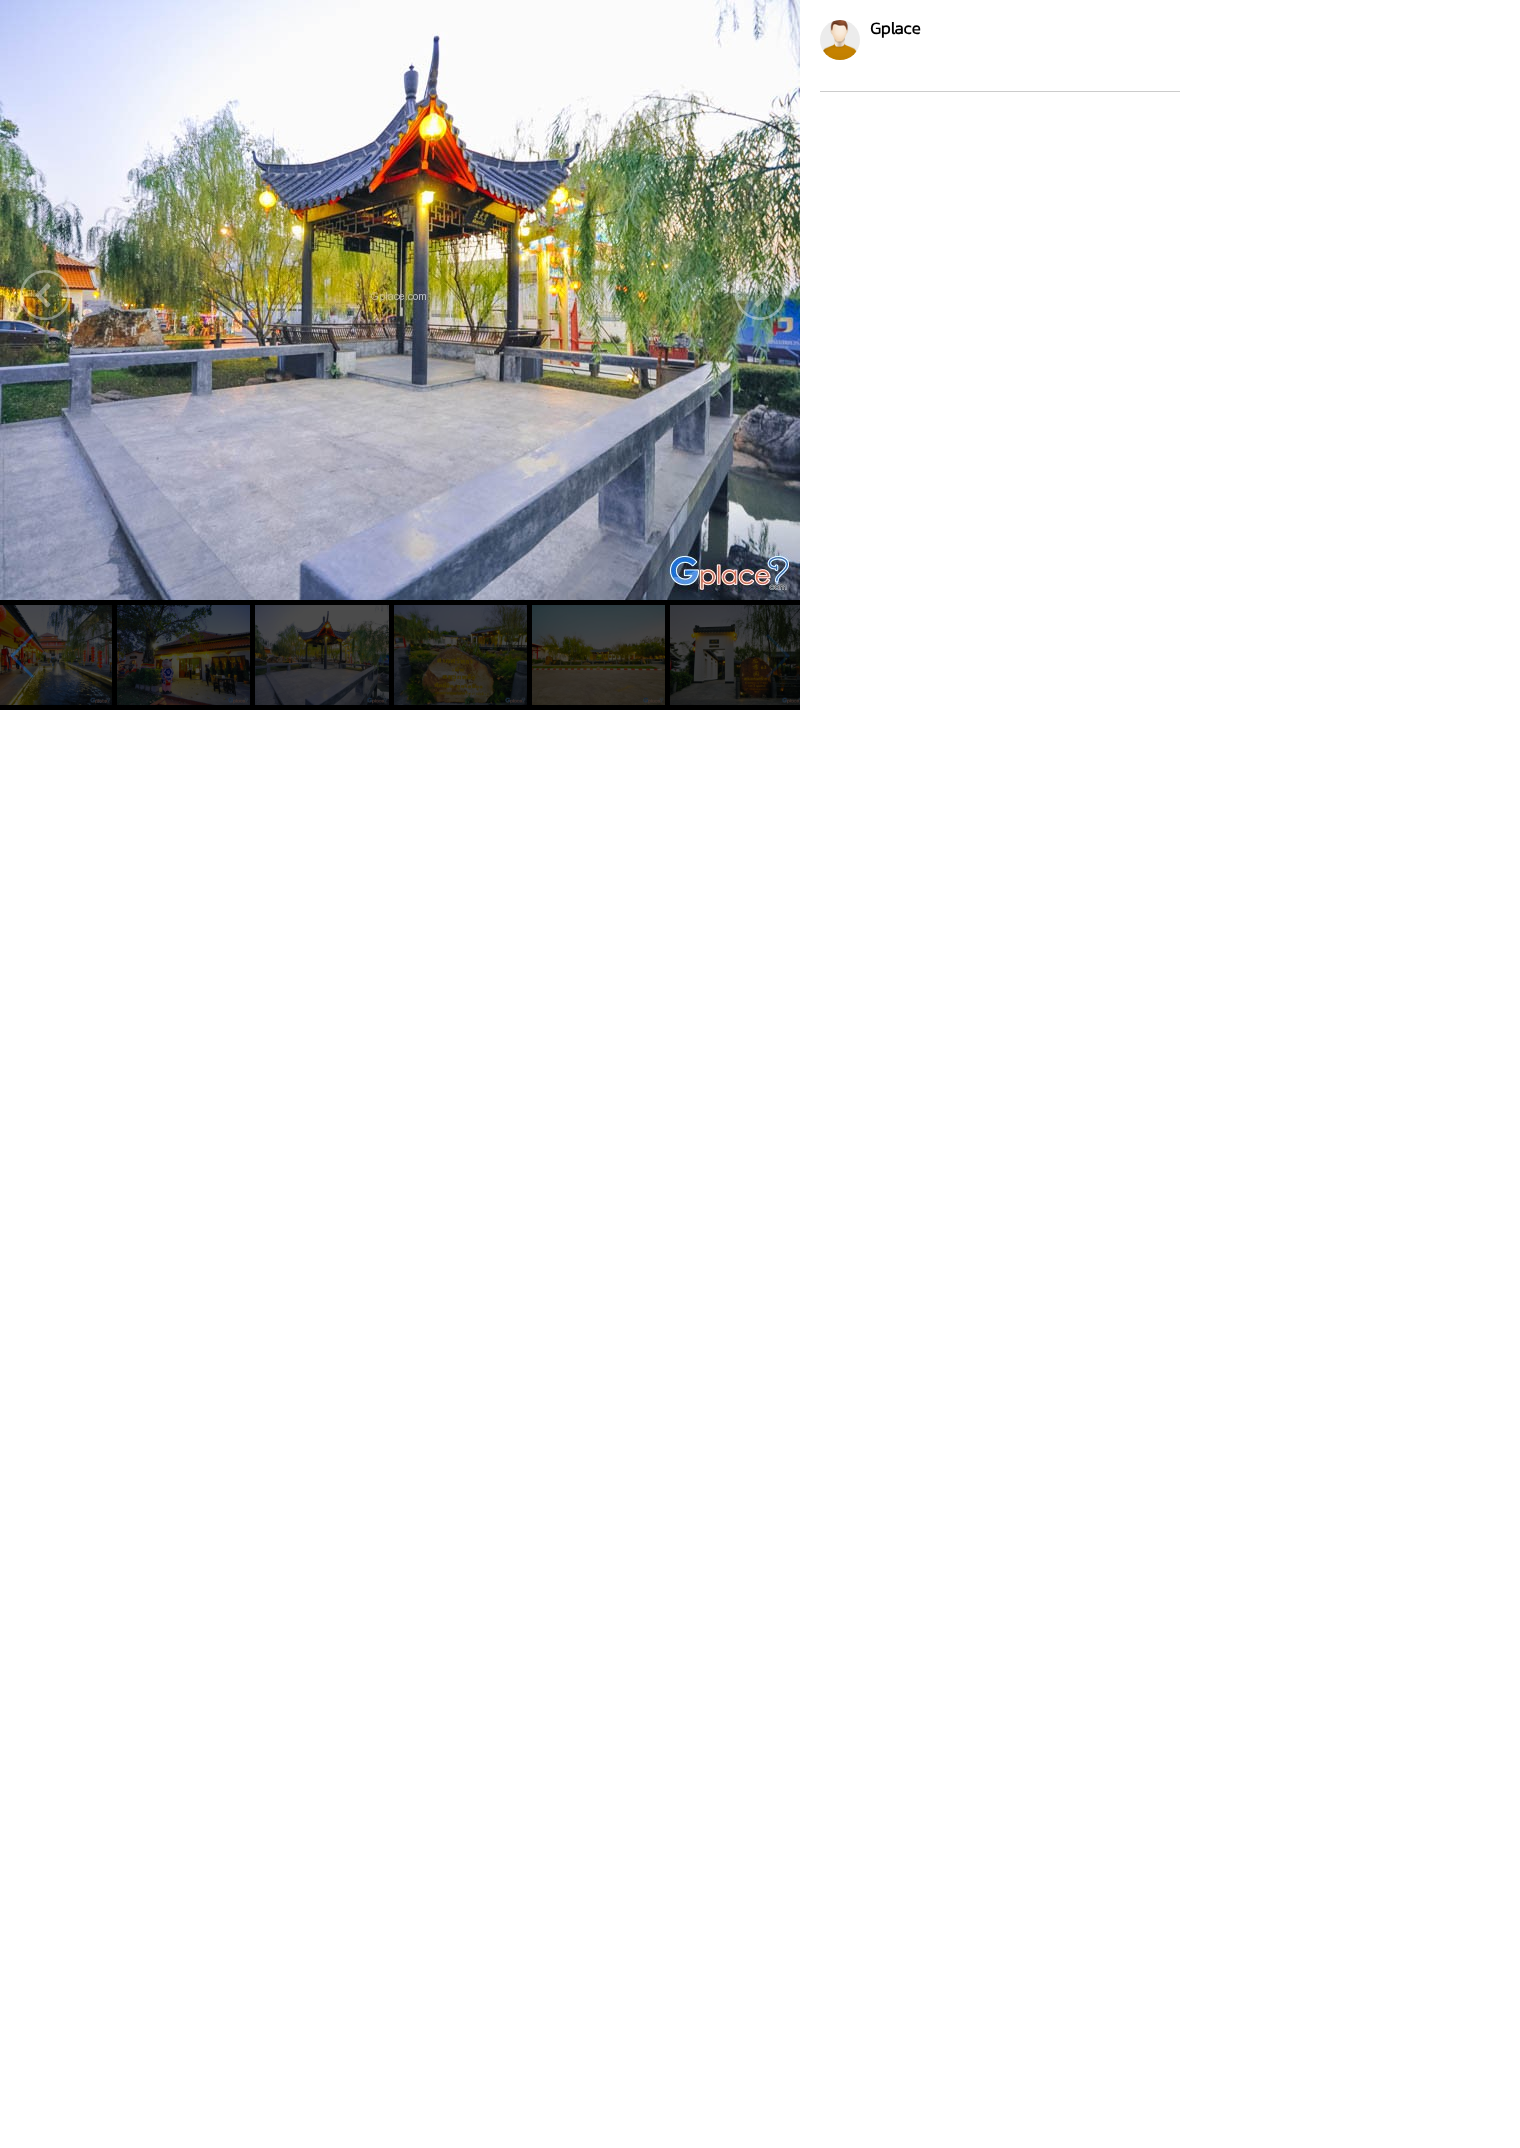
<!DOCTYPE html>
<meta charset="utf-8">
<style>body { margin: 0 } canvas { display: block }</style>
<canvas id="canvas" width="1520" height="2148"></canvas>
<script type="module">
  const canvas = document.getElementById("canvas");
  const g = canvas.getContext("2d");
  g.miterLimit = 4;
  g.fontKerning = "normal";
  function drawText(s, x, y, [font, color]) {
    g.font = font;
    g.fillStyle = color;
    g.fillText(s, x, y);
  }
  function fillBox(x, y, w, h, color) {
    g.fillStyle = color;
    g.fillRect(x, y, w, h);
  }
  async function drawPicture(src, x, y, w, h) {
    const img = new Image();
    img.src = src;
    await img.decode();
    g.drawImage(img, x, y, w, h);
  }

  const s1 = ["bold 17px Kanit", "#000000"];

  fillBox(0, 0, 1520, 2148, "#FFFFFF");
  fillBox(0, 600, 800, 110, "#000000");
  await drawPicture("pic1.png", 0, 0, 800, 600);
  await drawPicture("pic2.png", 20, 270, 50, 50);
  await drawPicture("pic3.png", 735, 270, 50, 50);
  await drawPicture("pic4.png", 0, 605, 112, 100);
  await drawPicture("pic5.png", 117, 605, 133, 100);
  await drawPicture("pic6.png", 255, 605, 134, 100);
  await drawPicture("pic7.png", 394, 605, 133, 100);
  await drawPicture("pic8.png", 532, 605, 133, 100);
  await drawPicture("pic9.png", 670, 605, 130, 100);
  g.fillStyle = "rgba(0, 122, 255, 0.3)";
  g.beginPath();
  g.moveTo(10, 656);
  g.lineTo(32, 634);
  g.lineTo(34, 636);
  g.lineTo(14, 656);
  g.lineTo(34, 676);
  g.lineTo(32, 678);
  g.closePath();
  g.fill();
  g.fillStyle = "rgba(0, 122, 255, 0.1)";
  g.beginPath();
  g.moveTo(790, 656);
  g.lineTo(768, 678);
  g.lineTo(766, 676);
  g.lineTo(786, 656);
  g.lineTo(766, 636);
  g.lineTo(768, 634);
  g.closePath();
  g.fill();
  await drawPicture("pic10.png", 820, 20, 40, 40);
  drawText("Gplace", 870, 34, s1);
  fillBox(820, 91, 360, 1, "#CCCCCC");
</script>
